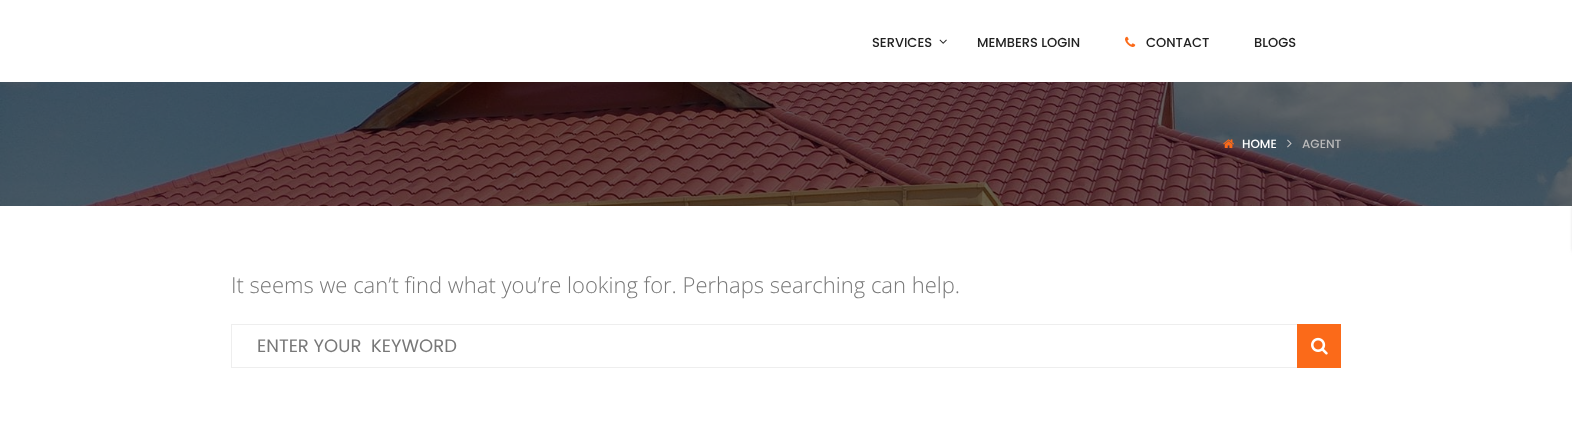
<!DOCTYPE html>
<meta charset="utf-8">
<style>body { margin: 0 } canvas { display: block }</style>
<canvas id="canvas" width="1572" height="446"></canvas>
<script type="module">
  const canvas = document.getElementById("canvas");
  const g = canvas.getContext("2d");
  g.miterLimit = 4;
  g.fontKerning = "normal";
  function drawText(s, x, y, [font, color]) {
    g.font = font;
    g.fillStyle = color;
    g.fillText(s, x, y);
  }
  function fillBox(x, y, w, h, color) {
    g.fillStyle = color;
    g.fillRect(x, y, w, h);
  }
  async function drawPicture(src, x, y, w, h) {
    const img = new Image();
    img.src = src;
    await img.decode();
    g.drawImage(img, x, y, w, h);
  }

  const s1 = ["500 13px Poppins", "#222222"];
  const s2 = ["500 12px Poppins", "#FFFFFF"];
  const s3 = ["500 12px Poppins", "#BABABA"];
  const s4 = ["300 22px Open Sans", "#787878"];
  const s5 = ["18px Poppins", "#787878"];

  fillBox(0, 0, 1572, 446, "#FFFFFF");
  drawText("SERVICES", 872, 47, s1);
  await drawPicture("pic1.png", 939, 39, 8, 5);
  drawText("MEMBERS LOGIN", 977, 47, s1);
  await drawPicture("pic2.png", 1125, 36, 11, 11);
  drawText("CONTACT", 1146, 47, s1);
  drawText("BLOGS", 1254, 47, s1);
  await drawPicture("pic3.png", 0, 82, 1572, 124);
  await drawPicture("pic4.png", 1223, 139, 11, 9);
  drawText("HOME", 1242, 148, s2);
  await drawPicture("pic5.png", 1287, 139, 5, 9);
  drawText("AGENT", 1302, 148, s3);
  drawText("It seems we can’t find what you’re looking for. Perhaps searching can help.", 231, 293, s4);
  g.strokeStyle = "#EEEEEE";
  g.strokeRect(231.5, 324.5, 1109, 43);
  drawText("ENTER YOUR  KEYWORD", 257, 352, s5);
  fillBox(1297, 324, 44, 44, "#FB6A19");
  await drawPicture("pic6.png", 1311, 337, 17, 18);
  g.fillStyle = "#777777";
  g.filter = "blur(2.5px)";
  g.beginPath();
  g.rect(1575, 197, 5, 54);
  g.fill();
  g.filter = "none";
</script>
